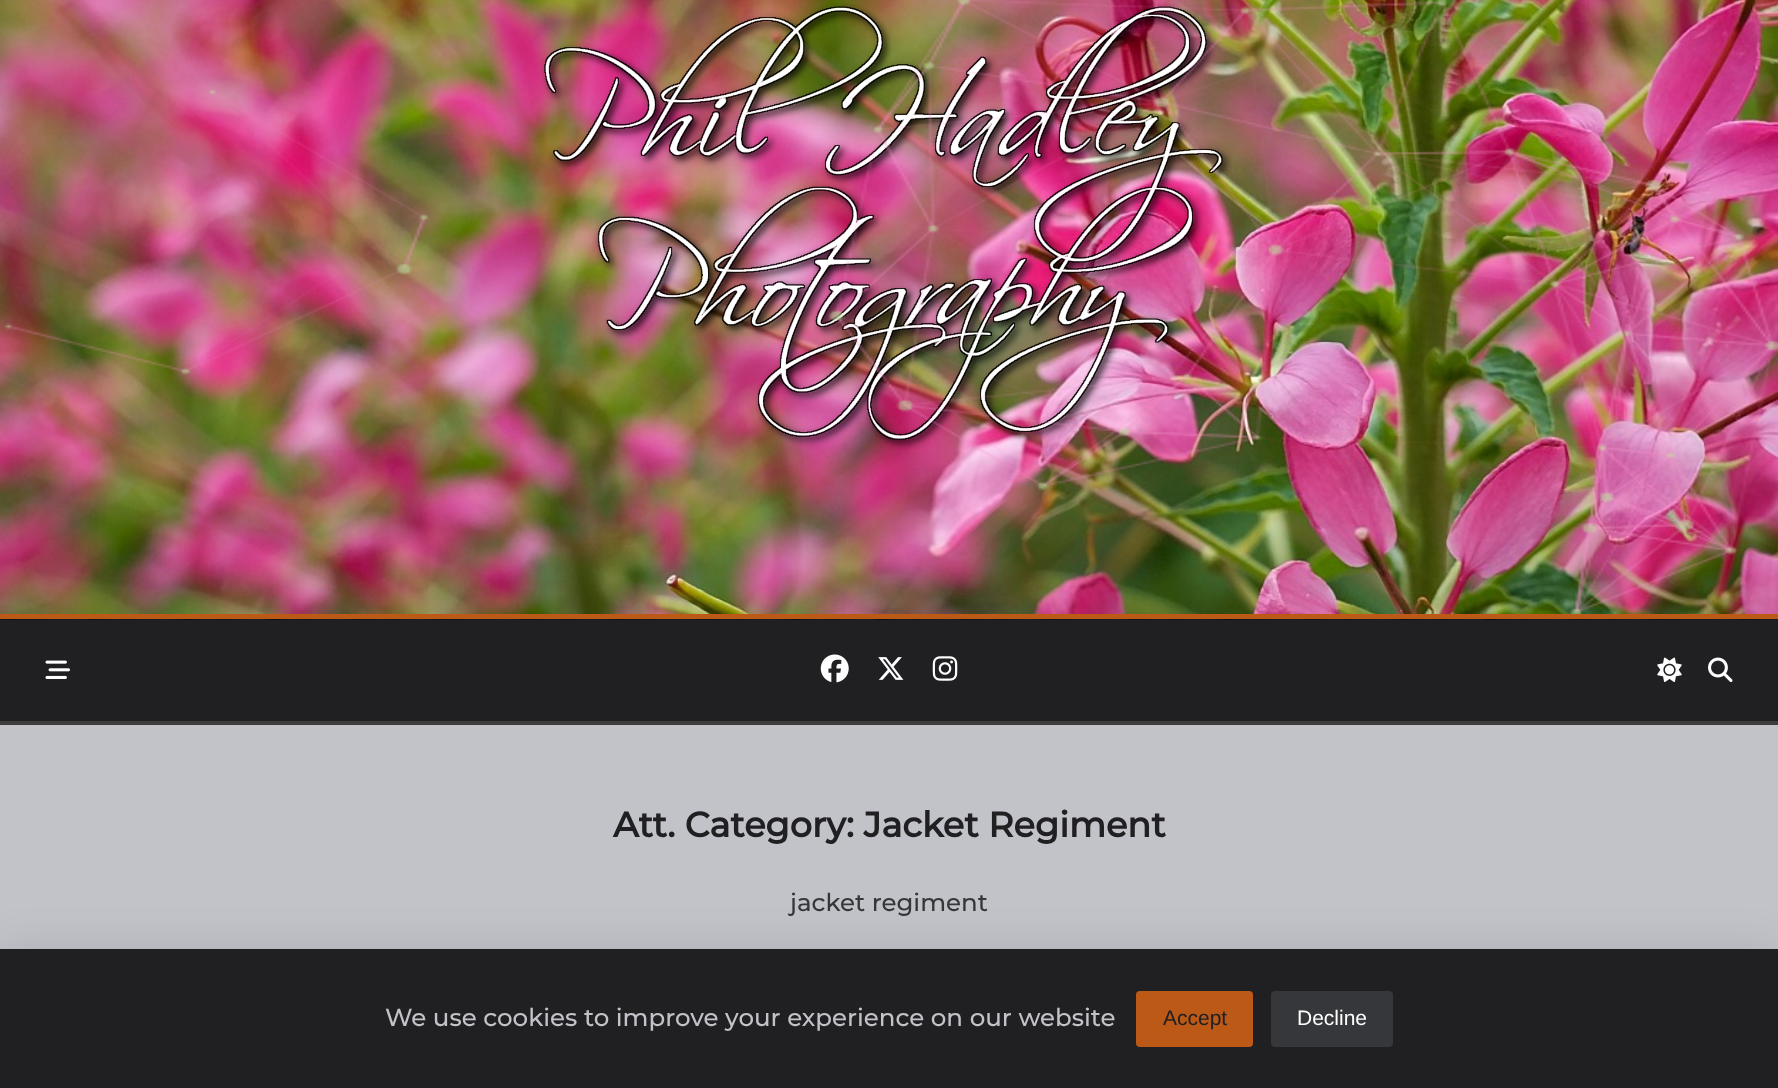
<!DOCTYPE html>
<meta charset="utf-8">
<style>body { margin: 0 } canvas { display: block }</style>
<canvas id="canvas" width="1778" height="1088"></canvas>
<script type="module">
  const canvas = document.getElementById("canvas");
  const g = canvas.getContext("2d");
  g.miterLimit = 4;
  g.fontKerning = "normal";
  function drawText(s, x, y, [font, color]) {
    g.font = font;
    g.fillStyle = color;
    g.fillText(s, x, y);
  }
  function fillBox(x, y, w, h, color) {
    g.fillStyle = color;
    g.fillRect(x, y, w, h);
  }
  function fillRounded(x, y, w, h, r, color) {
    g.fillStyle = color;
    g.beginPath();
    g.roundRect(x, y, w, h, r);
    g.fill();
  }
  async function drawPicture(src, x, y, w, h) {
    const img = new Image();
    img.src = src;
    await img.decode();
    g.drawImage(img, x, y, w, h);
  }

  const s1 = ["bold 35px Montserrat", "#202023"];
  const s2 = ["100 24.5px Montserrat", "#36373B"];
  const s3 = ["100 24.5px Montserrat", "#C2C3C8"];
  const s4 = ["21px Liberation Sans", "#202023"];
  const s5 = ["21px Liberation Sans", "#FEFEFE"];

  fillBox(0, 0, 1778, 1088, "#FFFFFF");
  await drawPicture("pic1.png", 0, 619, 1778, 1);
  await drawPicture("pic2.png", 0, 0, 1778, 614);
  await drawPicture("pic4.png", 541, 3, 691, 447);
  await drawPicture("pic3.png", 4, 0, 1774, 614);
  fillBox(0, 620, 1778, 101, "#202023");
  fillBox(0, 614, 1778, 5, "#BC5917");
  fillBox(0, 721, 1778, 4, "#3D3D3D");
  await drawPicture("pic5.png", 45, 660, 25, 19);
  await drawPicture("pic6.png", 820, 654, 29, 29);
  await drawPicture("pic7.png", 878, 657, 26, 23);
  await drawPicture("pic8.png", 932, 656, 26, 25);
  await drawPicture("pic9.png", 1657, 657, 25, 25);
  await drawPicture("pic10.png", 1708, 657, 25, 25);
  fillBox(0, 725, 1778, 224, "#C2C3C8");
  drawText("Att. Category: Jacket Regiment", 613, 837, s1);
  drawText("jacket regiment", 790, 911, s2);
  g.fillStyle = "rgba(44, 62, 80, 0.15)";
  g.filter = "blur(21px)";
  g.beginPath();
  g.rect(0, 949, 1778, 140);
  g.fill();
  g.filter = "none";
  fillBox(0, 949, 1778, 139, "#202023");
  drawText("We use cookies to improve your experience on our website", 385, 1026, s3);
  fillRounded(1136, 991, 117, 56, 4, "#BC5917");
  drawText("Accept", 1163, 1025, s4);
  fillRounded(1271, 991, 122, 56, 4, "#36373B");
  drawText("Decline", 1297, 1025, s5);
</script>
